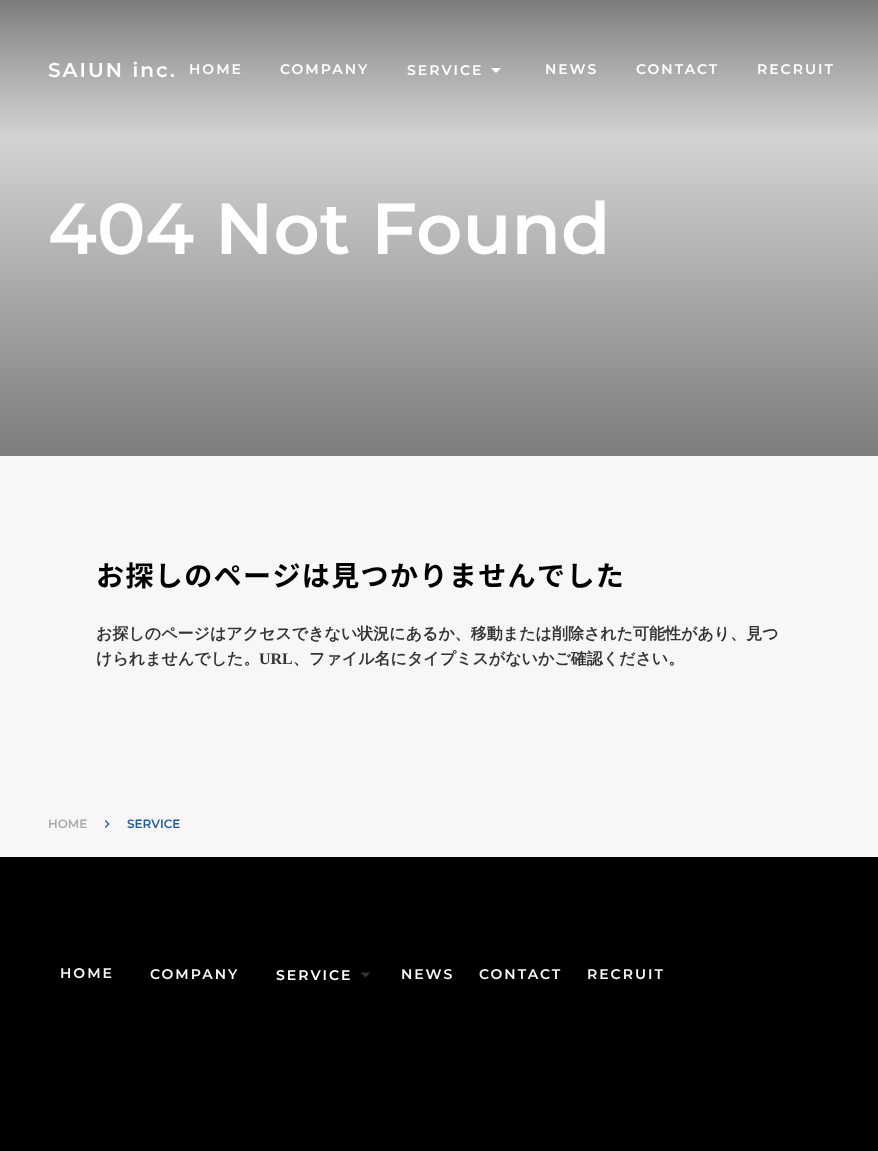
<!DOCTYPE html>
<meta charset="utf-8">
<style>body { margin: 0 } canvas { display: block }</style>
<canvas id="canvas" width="878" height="1151"></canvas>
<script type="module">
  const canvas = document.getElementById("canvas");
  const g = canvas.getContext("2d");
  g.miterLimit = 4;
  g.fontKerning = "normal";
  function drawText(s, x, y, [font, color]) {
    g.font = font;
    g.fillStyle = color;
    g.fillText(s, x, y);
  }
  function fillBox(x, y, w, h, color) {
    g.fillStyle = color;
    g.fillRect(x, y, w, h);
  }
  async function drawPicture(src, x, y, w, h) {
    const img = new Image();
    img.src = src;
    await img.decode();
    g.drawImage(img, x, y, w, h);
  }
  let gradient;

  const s1 = ["600 20px Montserrat", "#FFFFFF"];
  const s2 = ["600 14px Montserrat", "#FFFFFF"];
  const s3 = ["600 72px Montserrat", "#FFFFFF"];
  const s4 = ["bold 28px Noto Sans JP", "#000000"];
  const s5 = ["bold 16px WenQuanYi Zen Hei", "#333333"];
  const s6 = ["bold 16px Liberation Serif", "#333333"];
  const s7 = ["600 12px Montserrat", "#AAAAAA"];
  const s8 = ["600 12px Montserrat", "#1E5A9F"];
  const s9 = ["600 14px Montserrat", "#F8F7F6"];

  fillBox(0, 0, 878, 1151, "#F8F7F6");
  gradient = g.createLinearGradient(439, 0, 439, 456);
  gradient.addColorStop(0, "#F8F8F7");
  gradient.addColorStop(1, "#7C7C7C");
  g.fillStyle = gradient;
  g.fillRect(0, 9, 878, 447);
  gradient = g.createLinearGradient(439, 0, 439, 140);
  gradient.addColorStop(0, "rgba(0, 0, 0, 0.5)");
  gradient.addColorStop(1, "rgba(0, 0, 0, 0)");
  g.fillStyle = gradient;
  g.fillRect(0, 0, 878, 134);
  g.letterSpacing = "2px";
  g.wordSpacing = "1px";
  drawText("SAIUN inc.", 48, 77, s1);
  g.wordSpacing = "0px";
  drawText("HOME", 189, 74, s2);
  drawText("COMPANY", 280, 74, s2);
  drawText("SERVICE", 407, 75, s2);
  g.beginPath();
  g.moveTo(501, 68);
  g.lineTo(496, 73);
  g.lineTo(491, 68);
  g.closePath();
  g.fill();
  drawText("NEWS", 545, 74, s2);
  drawText("CONTACT", 636, 74, s2);
  drawText("RECRUIT", 757, 74, s2);
  g.letterSpacing = "0px";
  g.wordSpacing = "1px";
  drawText("404 Not Found", 48, 254, s3);
  g.letterSpacing = "1.4px";
  g.wordSpacing = "0px";
  drawText("お探しのページは見つかりませんでした", 96, 586, s4);
  g.letterSpacing = "0px";
  drawText("お探しのページはアクセスできない状況にあるか、移動または削除された可能性があり、見つ", 96, 639, s5);
  drawText("けられませんでした。", 96, 664, s5);
  drawText("URL", 259, 664, s6);
  drawText("、ファイル名にタイプミスがないかご確認ください。", 293, 664, s5);
  drawText("HOME", 48, 828, s7);
  await drawPicture("pic1.png", 104, 820, 6, 8);
  drawText("SERVICE", 127, 828, s8);
  fillBox(0, 857, 878, 294, "#000000");
  g.letterSpacing = "2px";
  drawText("HOME", 60, 978, s9);
  drawText("COMPANY", 150, 979, s9);
  drawText("SERVICE", 276, 980, s2);
  g.fillStyle = "#333333";
  g.beginPath();
  g.moveTo(370.5, 972.5);
  g.lineTo(365.5, 977.5);
  g.lineTo(360.5, 972.5);
  g.closePath();
  g.fill();
  drawText("NEWS", 401, 979, s9);
  drawText("CONTACT", 479, 979, s9);
  drawText("RECRUIT", 587, 979, s9);
</script>
